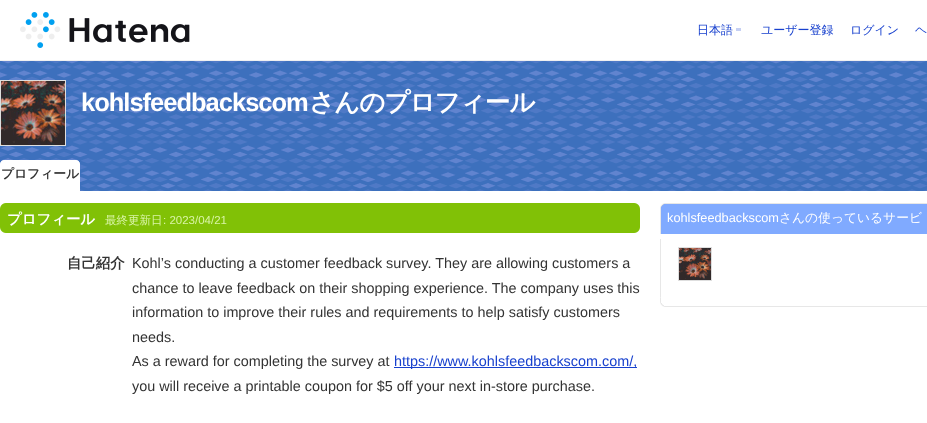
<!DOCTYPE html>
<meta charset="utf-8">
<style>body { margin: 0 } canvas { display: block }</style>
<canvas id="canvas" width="927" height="423"></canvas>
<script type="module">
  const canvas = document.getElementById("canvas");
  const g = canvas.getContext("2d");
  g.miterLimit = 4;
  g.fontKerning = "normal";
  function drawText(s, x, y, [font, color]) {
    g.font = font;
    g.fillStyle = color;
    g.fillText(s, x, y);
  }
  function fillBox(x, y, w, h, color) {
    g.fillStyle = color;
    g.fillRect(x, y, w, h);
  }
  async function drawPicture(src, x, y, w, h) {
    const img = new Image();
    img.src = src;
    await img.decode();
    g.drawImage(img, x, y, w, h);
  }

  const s1 = ["500 12px WenQuanYi Zen Hei", "#1841CE"];
  const s2 = ["bold 25.5px Liberation Sans", "#FFFFFF"];
  const s3 = ["bold 25.5px WenQuanYi Zen Hei", "#FFFFFF"];
  const s4 = ["bold 12.75px WenQuanYi Zen Hei", "#333333"];
  const s5 = ["bold 14.4px WenQuanYi Zen Hei", "#FFFFFF"];
  const s6 = ["500 11.5px WenQuanYi Zen Hei", "#D9F4A6"];
  const s7 = ["11.5px Liberation Sans", "#D9F4A6"];
  const s8 = ["bold 14.4px WenQuanYi Zen Hei", "#333333"];
  const s9 = ["14.4px Liberation Sans", "#333333"];
  const s10 = ["14.4px Liberation Sans", "#1841CE"];
  const s11 = ["12.75px Liberation Sans", "#FFFFFF"];
  const s12 = ["500 12.75px WenQuanYi Zen Hei", "#FFFFFF"];

  fillBox(0, 0, 927, 423, "#FFFFFF");
  fillBox(0, 60, 927, 1, "#F0F0F0");
  await drawPicture("pic1.png", 20, 12, 170, 36);
  fillBox(736, 28, 5, 3, "#C6D0F3");
  drawText("日本語", 697, 34, s1);
  drawText("ユーザー登録", 761, 34, s1);
  drawText("ログイン", 850, 34, s1);
  drawText("ヘ", 915, 34, s1);
  await drawPicture("pic2.png", 0, 61, 927, 130);
  g.strokeStyle = "#DEDEDE";
  g.strokeRect(0.5, 80.5, 65, 65);
  await drawPicture("pic3.png", 1, 81, 64, 64);
  g.letterSpacing = "-1px";
  drawText("kohlsfeedbackscom", 81, 111, s2);
  drawText("さんのプロフィール", 309, 111, s3);
  await drawPicture("pic4.png", 0, 160, 80, 31);
  g.letterSpacing = "0px";
  drawText("プロフィール", 1, 178, s4);
  await drawPicture("pic5.png", 0, 203, 640, 30);
  drawText("プロフィール", 7, 224, s5);
  drawText("最終更新日", 105, 224, s6);
  drawText(": 2023/04/21", 163, 224, s7);
  drawText("自己紹介", 67, 268, s8);
  drawText("Kohl’s conducting a customer feedback survey. They are allowing customers a", 132, 268, s9);
  drawText("chance to leave feedback on their shopping experience. The company uses this", 132, 293, s9);
  drawText("information to improve their rules and requirements to help satisfy customers", 132, 317, s9);
  drawText("needs.", 132, 342, s9);
  drawText("As a reward for completing the survey at", 132, 366, s9);
  fillBox(394, 367, 243, 1, "#1841CE");
  drawText("https://www.kohlsfeedbackscom.com/,", 394, 366, s10);
  drawText("you will receive a printable coupon for $5 off your next in-store purchase.", 132, 391, s9);
  await drawPicture("pic6.png", 660, 297, 267, 10);
  await drawPicture("pic7.png", 660, 203, 267, 31);
  drawText("kohlsfeedbackscom", 667, 222, s11);
  drawText("さんの使っているサービ", 779, 222, s12);
  fillBox(660, 239, 1, 58, "#E7E7E7");
  g.strokeRect(678.5, 247.5, 33, 33);
  await drawPicture("pic8.png", 679, 248, 32, 32);
</script>
